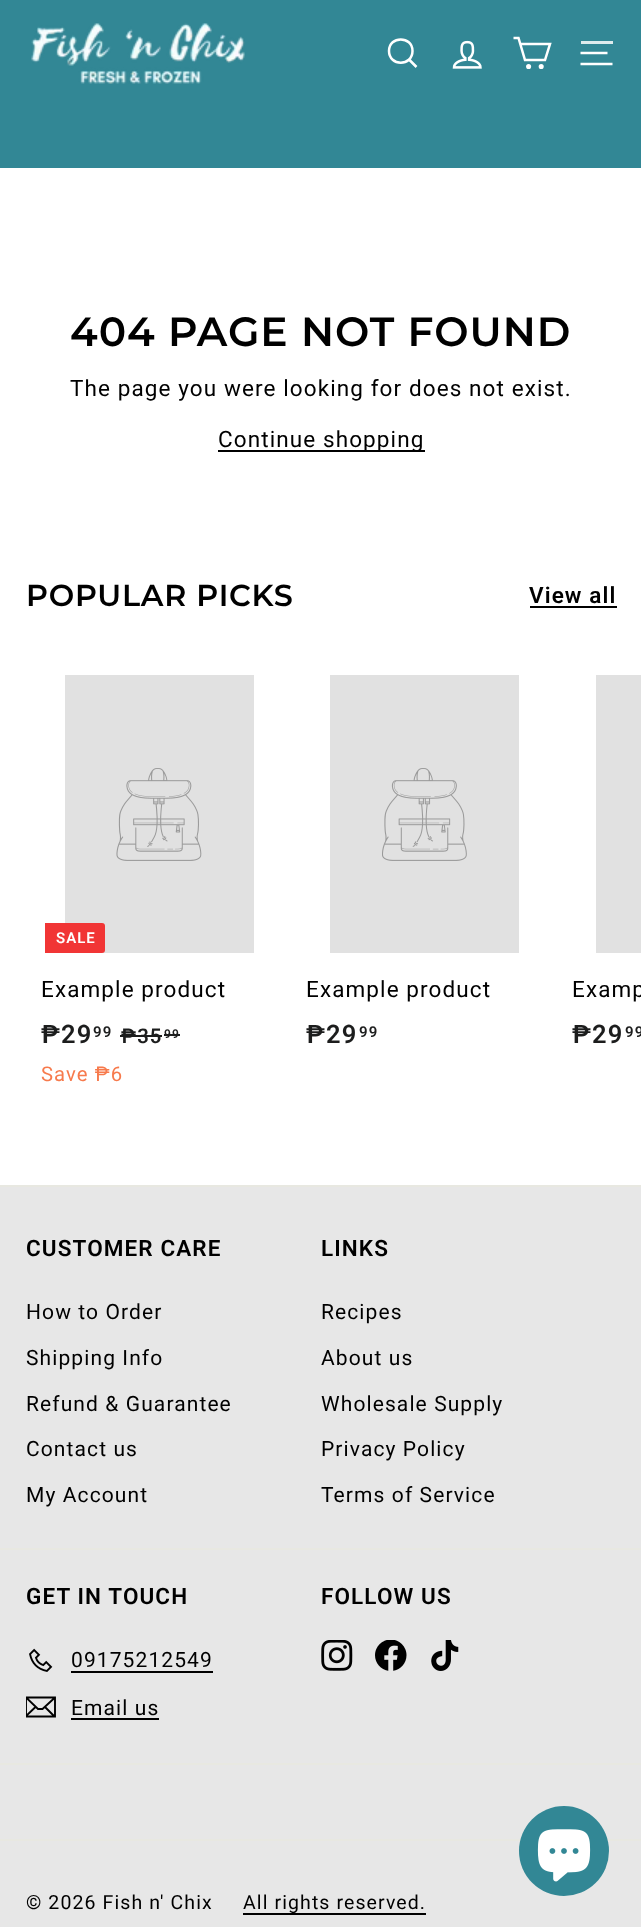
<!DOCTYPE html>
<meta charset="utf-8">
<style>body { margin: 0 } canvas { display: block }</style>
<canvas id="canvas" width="641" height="1927"></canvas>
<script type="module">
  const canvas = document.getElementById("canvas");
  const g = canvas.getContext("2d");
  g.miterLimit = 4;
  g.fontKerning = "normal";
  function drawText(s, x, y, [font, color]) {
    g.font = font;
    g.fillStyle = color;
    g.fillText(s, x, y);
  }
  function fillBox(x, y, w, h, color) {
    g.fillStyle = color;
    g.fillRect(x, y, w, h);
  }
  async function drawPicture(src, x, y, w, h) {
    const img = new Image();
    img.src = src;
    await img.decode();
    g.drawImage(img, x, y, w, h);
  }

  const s1 = ["600 40.75px Montserrat", "#000000"];
  const s2 = ["22.5px Roboto", "#000000"];
  const s3 = ["600 30.25px Montserrat", "#000000"];
  const s4 = ["600 22.5px Roboto", "#000000"];
  const s5 = ["600 15px Roboto", "#FFFFFF"];
  const s6 = ["600 25.5px Roboto", "#1C1D1D"];
  const s7 = ["600 15px Roboto", "#1C1D1D"];
  const s8 = ["600 20.25px Roboto", "#1C1D1D"];
  const s9 = ["600 12px Roboto", "#1C1D1D"];
  const s10 = ["20.25px Roboto", "#F77A4C"];
  const s11 = ["21px Roboto", "#000000"];
  const s12 = ["19.5px Roboto", "#000000"];

  fillBox(0, 0, 641, 1927, "#FFFFFF");
  fillBox(0, 0, 641, 168, "#328795");
  await drawPicture("pic1.png", 31, 23, 214, 61);
  g.beginPath();
  g.moveTo(412.5, 51);
  g.bezierCurveTo(412.5, 66.5, 389, 66.5, 389, 51);
  g.bezierCurveTo(389, 35.5, 412.5, 35.5, 412.5, 51);
  g.closePath();
  g.moveTo(416.5, 67);
  g.lineTo(409, 59.5);
  g.strokeStyle = "#FFFFFF";
  g.lineWidth = 2.5;
  g.stroke();
  await drawPicture("pic2.png", 452, 40, 30, 29);
  g.beginPath();
  g.moveTo(520.5, 44);
  g.lineTo(550, 44);
  g.lineTo(545, 60);
  g.lineTo(525, 60);
  g.lineTo(518.5, 38);
  g.lineTo(513.5, 38);
  g.stroke();
  g.beginPath();
  g.arc(528.6, 66.5, 1.3, 0, Math.PI * 2);
  g.stroke();
  g.beginPath();
  g.arc(541.2, 66.5, 1.3, 0, Math.PI * 2);
  g.stroke();
  fillBox(581, 41, 32, 3, "#DDEBED");
  g.beginPath();
  g.moveTo(580.5, 53);
  g.lineTo(607.5, 53);
  g.moveTo(580.5, 64);
  g.lineTo(612.5, 64);
  g.stroke();
  g.letterSpacing = "1px";
  drawText("404 PAGE NOT FOUND", 70, 346, s1);
  g.letterSpacing = "1.1px";
  drawText("The page you were looking for does not exist.", 70, 396, s2);
  fillBox(218, 450, 207, 2, "#000000");
  drawText("Continue shopping", 218, 447, s2);
  g.letterSpacing = "0.75px";
  drawText("POPULAR PICKS", 26, 606, s3);
  g.letterSpacing = "1.1px";
  drawText("View all", 529, 603, s4);
  fillBox(530, 606, 87, 2, "#000000");
  fillBox(65, 675, 189, 278, "#E1E1E1");
  await drawPicture("pic3.png", 116, 768, 86, 93);
  g.fillStyle = "#F13535";
  g.beginPath();
  g.roundRect(45, 923, 60, 30, [0, 3, 3, 0]);
  g.fill();
  g.letterSpacing = "1px";
  drawText("SALE", 56, 943, s5);
  g.letterSpacing = "1.1px";
  drawText("Example product", 41, 997, s2);
  drawText("₱29", 41, 1043, s6);
  drawText("99", 93, 1037, s7);
  drawText("₱35", 121, 1043, s8);
  fillBox(120, 1035, 42, 2, "#1C1D1D");
  drawText("99", 164, 1038, s9);
  fillBox(164, 1034, 16, 2, "#1C1D1D");
  drawText("Save ₱6", 41, 1081, s10);
  fillBox(330, 675, 189, 278, "#E1E1E1");
  await drawPicture("pic4.png", 382, 768, 85, 93);
  drawText("Example product", 306, 997, s2);
  drawText("₱29", 306, 1043, s6);
  drawText("99", 359, 1037, s7);
  fillBox(596, 675, 45, 278, "#E1E1E1");
  drawText("Examp", 572, 997, s2);
  drawText("₱29", 572, 1043, s6);
  drawText("99", 625, 1037, s7);
  fillBox(0, 1187, 641, 740, "#E7E7E7");
  fillBox(0, 1185, 641, 2, "#E8E8E1");
  drawText("CUSTOMER CARE", 26, 1256, s4);
  drawText("How to Order", 26, 1319, s11);
  drawText("Shipping Info", 26, 1365, s11);
  drawText("Refund & Guarantee", 26, 1411, s11);
  drawText("Contact us", 26, 1456, s11);
  drawText("My Account", 26, 1502, s11);
  drawText("LINKS", 321, 1256, s4);
  drawText("Recipes", 321, 1319, s11);
  drawText("About us", 321, 1365, s11);
  drawText("Wholesale Supply", 321, 1411, s11);
  drawText("Privacy Policy", 321, 1456, s11);
  drawText("Terms of Service", 321, 1502, s11);
  fillBox(0, 1548, 641, 2, "#E8E8E1");
  drawText("GET IN TOUCH", 26, 1604, s4);
  await drawPicture("pic5.png", 29, 1648, 24, 24);
  drawText("09175212549", 71, 1667, s11);
  fillBox(71, 1671, 142, 2, "#000000");
  g.save();
  g.beginPath();
  g.rect(26, 1692, 30, 30);
  g.clip();
  g.beginPath();
  g.moveTo(55, 1716.5);
  g.lineTo(26, 1716.5);
  g.lineTo(26, 1697.5);
  g.lineTo(55, 1697.5);
  g.closePath();
  g.moveTo(26, 1697.5);
  g.lineTo(38, 1709);
  g.lineTo(42.5, 1709);
  g.lineTo(55, 1697.5);
  g.moveTo(35.5, 1707);
  g.lineTo(26, 1716);
  g.moveTo(54.5, 1716.5);
  g.lineTo(45, 1707);
  g.strokeStyle = "#000000";
  g.lineWidth = 1.9;
  g.stroke();
  g.restore();
  drawText("Email us", 71, 1715, s11);
  fillBox(71, 1718, 88, 2, "#000000");
  drawText("FOLLOW US", 321, 1604, s4);
  await drawPicture("pic6.png", 321, 1640, 32, 31);
  await drawPicture("pic7.png", 375, 1640, 32, 31);
  await drawPicture("pic8.png", 431, 1640, 28, 31);
  fillBox(0, 1763, 641, 2, "#E8E8E1");
  fillBox(0, 1839, 641, 2, "#E8E8E1");
  drawText("© 2026 Fish n' Chix", 26, 1909, s12);
  fillBox(243, 1913, 183, 2, "#000000");
  drawText("All rights reserved.", 243, 1909, s12);
  g.fillStyle = "#328795";
  g.beginPath();
  g.arc(564, 1851, 45, 0, Math.PI * 2);
  g.fill();
  await drawPicture("pic9.png", 537, 1829, 54, 53);
</script>
